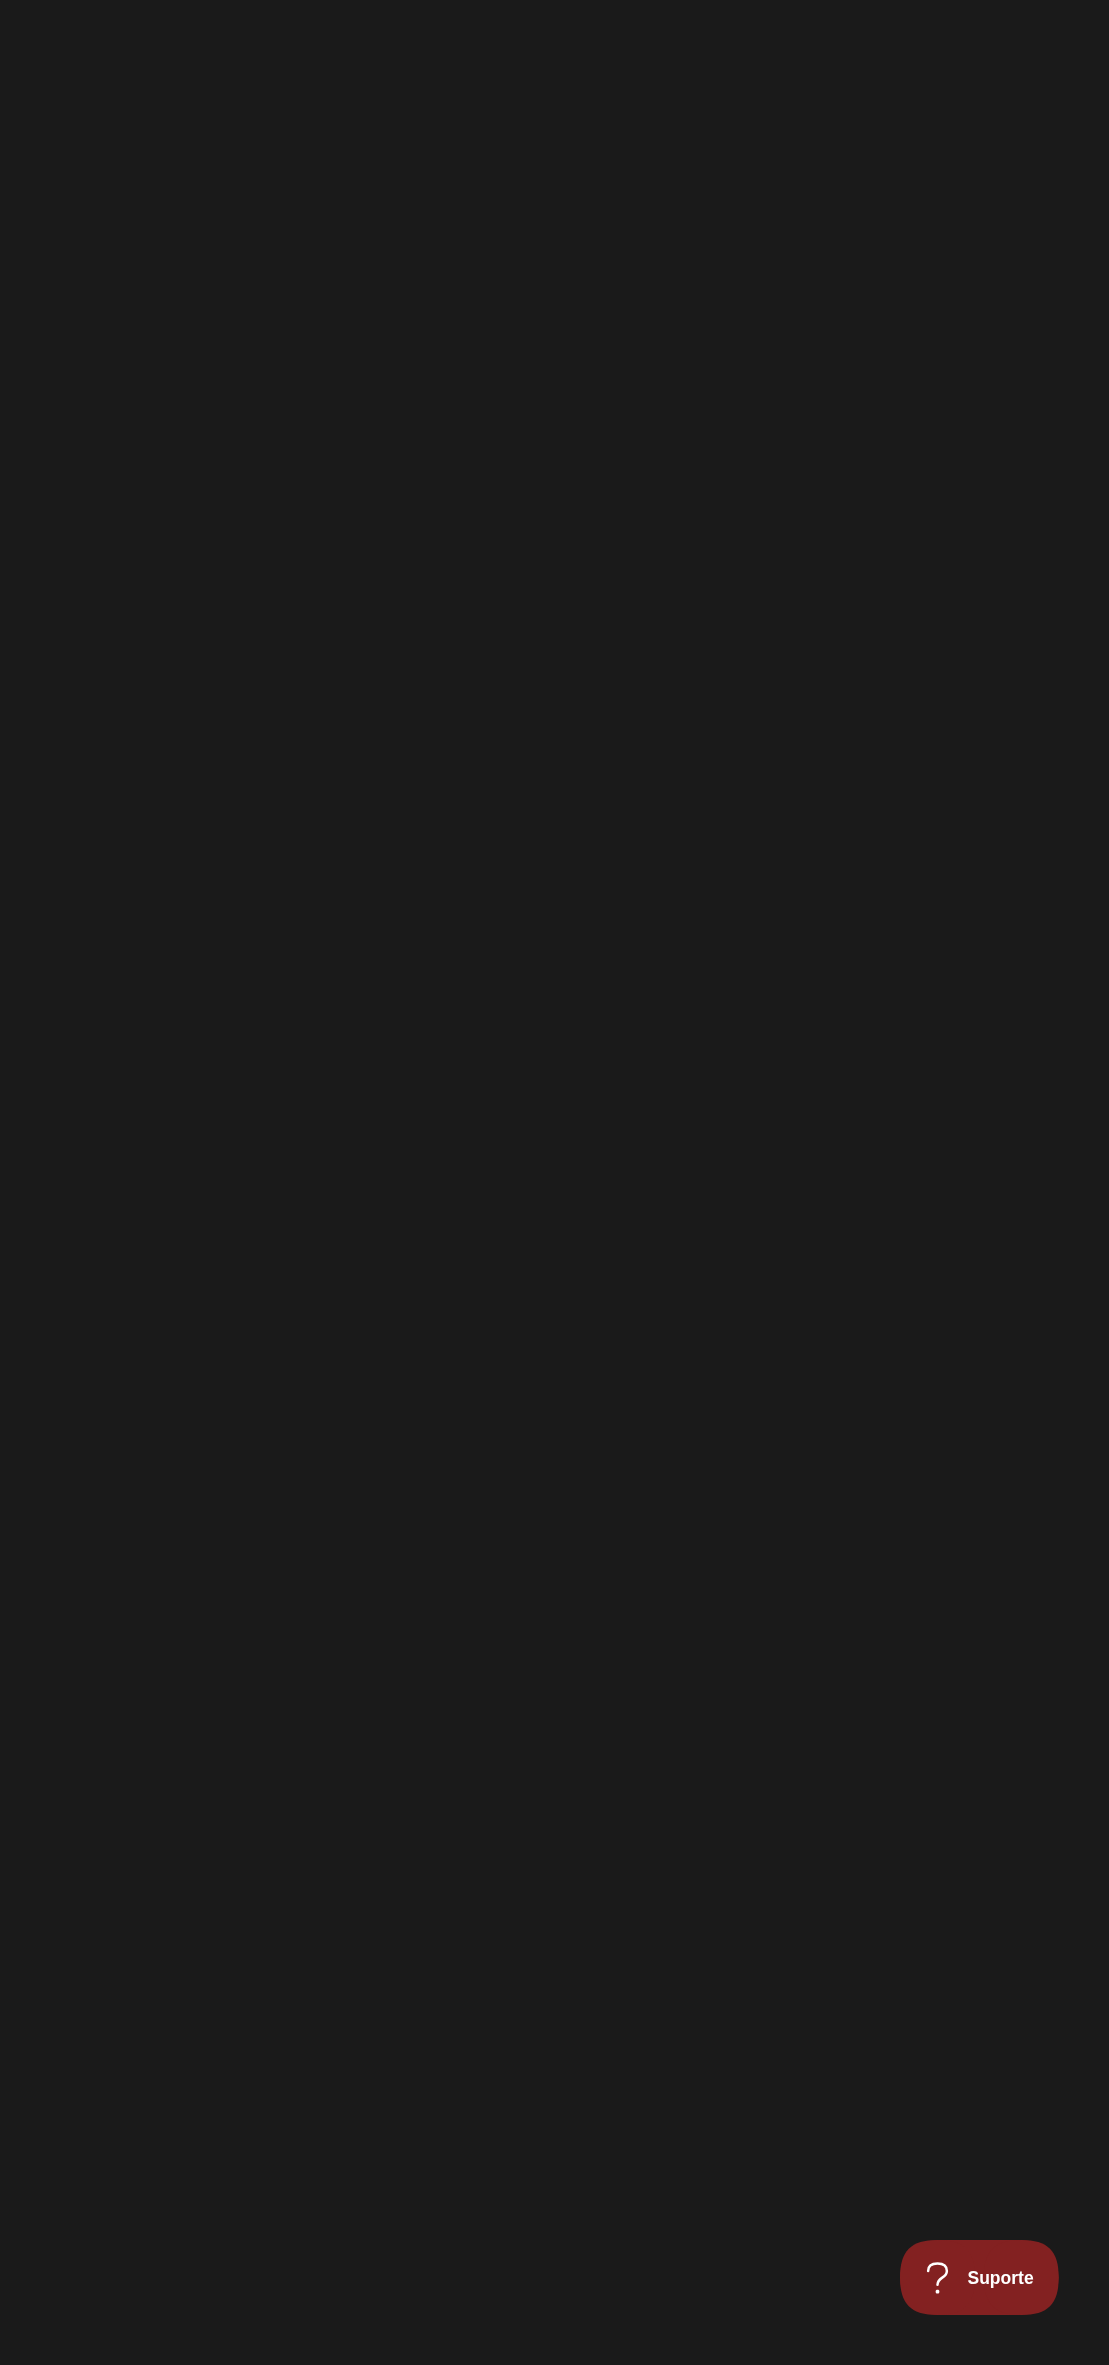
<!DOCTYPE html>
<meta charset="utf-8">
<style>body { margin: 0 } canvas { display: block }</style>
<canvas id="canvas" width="1109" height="2365"></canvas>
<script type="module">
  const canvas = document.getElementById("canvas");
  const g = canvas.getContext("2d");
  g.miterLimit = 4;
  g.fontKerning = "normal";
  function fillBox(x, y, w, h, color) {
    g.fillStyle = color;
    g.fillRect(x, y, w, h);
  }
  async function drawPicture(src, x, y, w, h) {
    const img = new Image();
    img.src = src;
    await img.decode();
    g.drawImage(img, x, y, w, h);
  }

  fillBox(0, 0, 1109, 2365, "#1A1A1A");
  await drawPicture("pic1.png", 900, 2240, 159, 75);
</script>
